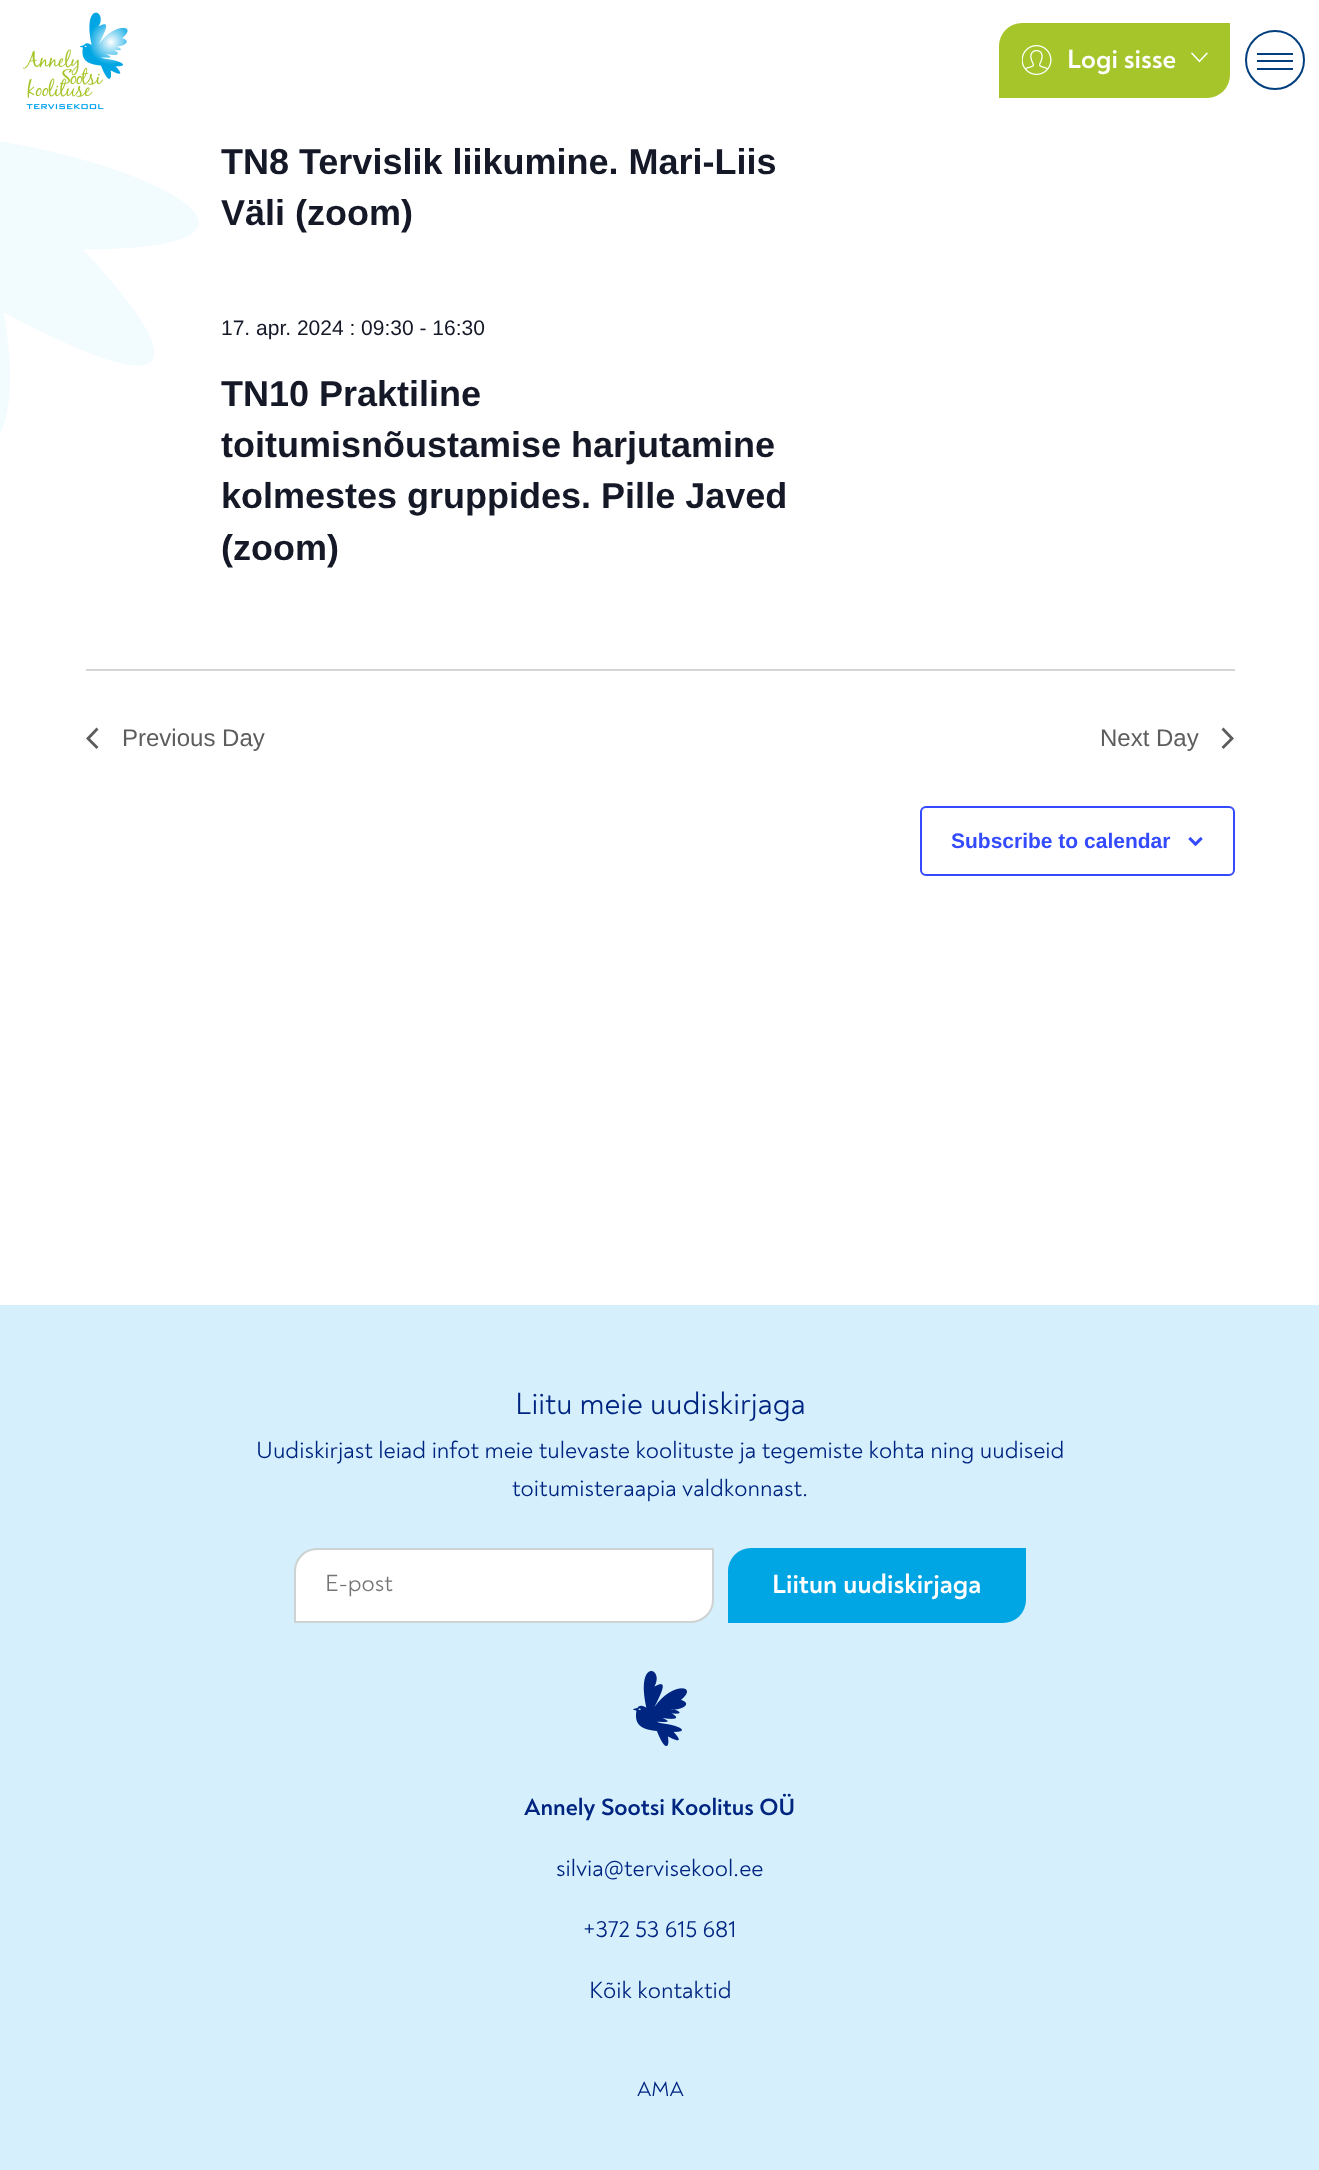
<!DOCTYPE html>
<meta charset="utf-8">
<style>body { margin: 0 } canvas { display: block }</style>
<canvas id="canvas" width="1319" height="2170"></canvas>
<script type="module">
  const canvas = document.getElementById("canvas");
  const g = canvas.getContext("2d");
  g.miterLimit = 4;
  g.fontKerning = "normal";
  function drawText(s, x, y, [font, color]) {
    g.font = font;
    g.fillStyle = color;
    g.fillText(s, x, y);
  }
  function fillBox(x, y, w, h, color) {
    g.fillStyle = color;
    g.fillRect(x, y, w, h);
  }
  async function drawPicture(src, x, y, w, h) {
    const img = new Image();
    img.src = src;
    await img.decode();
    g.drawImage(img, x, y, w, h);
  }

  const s1 = ["27px 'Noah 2'", "#FFFFFF"];
  const s2 = ["bold 36px Liberation Sans", "#141827"];
  const s3 = ["21px Liberation Sans", "#141827"];
  const s4 = ["24px Liberation Sans", "#5D5D5D"];
  const s5 = ["bold 21px Liberation Sans", "#334AFF"];
  const s6 = ["31.25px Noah", "#002581"];
  const s7 = ["24px Noah", "#002581"];
  const s8 = ["24px Noah", "#757575"];
  const s9 = ["24px 'Noah 2'", "#002581"];
  const s10 = ["21px Noah", "#002581"];

  fillBox(0, 0, 1319, 2170, "#FFFFFF");
  await drawPicture("pic1.png", 23, 12, 105, 98);
  g.fillStyle = "#A6C52A";
  g.beginPath();
  g.roundRect(999, 23, 231, 75, [23, 0, 23, 0]);
  g.fill();
  await drawPicture("pic2.png", 1022, 45, 30, 30);
  drawText("Logi sisse", 1067, 68, s1);
  await drawPicture("pic3.png", 1191, 52, 17, 11);
  g.beginPath();
  g.arc(1275, 60, 29, 0, Math.PI * 2);
  g.strokeStyle = "#003E7E";
  g.lineWidth = 2;
  g.stroke();
  fillBox(1257, 53, 36, 2, "#003E7E");
  fillBox(1257, 60, 36, 2, "#003E7E");
  fillBox(1257, 68, 36, 2, "#003E7E");
  await drawPicture("pic4.png", 0, 141, 199, 292);
  drawText("TN8 Tervislik liikumine. Mari-Liis", 221, 174, s2);
  drawText("Väli (zoom)", 221, 225, s2);
  drawText("17. apr. 2024 : 09:30 - 16:30", 221, 335, s3);
  drawText("TN10 Praktiline", 221, 406, s2);
  drawText("toitumisnõustamise harjutamine", 221, 457, s2);
  drawText("kolmestes gruppides. Pille Javed", 221, 508, s2);
  drawText("(zoom)", 221, 560, s2);
  fillBox(86, 669, 1149, 2, "#D5D5D5");
  g.fillStyle = "#5D5D5D";
  g.beginPath();
  g.moveTo(98.5, 747);
  g.lineTo(96.5, 749);
  g.lineTo(86, 738.5);
  g.lineTo(96.5, 727.5);
  g.lineTo(98.5, 729.5);
  g.lineTo(90, 738.5);
  g.closePath();
  g.fill();
  drawText("Previous Day", 122, 746, s4);
  drawText("Next Day", 1100, 746, s4);
  g.beginPath();
  g.moveTo(1221.5, 729.5);
  g.lineTo(1223.5, 727.5);
  g.lineTo(1234, 738.5);
  g.lineTo(1223.5, 749);
  g.lineTo(1221.5, 747);
  g.lineTo(1230, 738.5);
  g.closePath();
  g.fill();
  g.beginPath();
  g.roundRect(921, 807, 313, 68, 5);
  g.strokeStyle = "#334AFF";
  g.stroke();
  drawText("Subscribe to calendar", 951, 848, s5);
  await drawPicture("pic5.png", 1188, 837, 15, 9);
  fillBox(0, 1305, 1319, 865, "#D5F0FC");
  drawText("Liitu meie uudiskirjaga", 515, 1414, s6);
  drawText("Uudiskirjast leiad infot meie tulevaste koolituste ja tegemiste kohta ning uudiseid", 256, 1458, s7);
  drawText("toitumisteraapia valdkonnast.", 512, 1496, s7);
  g.fillStyle = "#FFFFFF";
  g.beginPath();
  g.roundRect(295, 1549, 418, 73, [22, 0, 22, 0]);
  g.fill();
  g.strokeStyle = "#CDD2D2";
  g.stroke();
  drawText("E-post", 325, 1591, s8);
  g.fillStyle = "#00A5E3";
  g.beginPath();
  g.roundRect(728, 1548, 298, 75, [23, 0, 23, 0]);
  g.fill();
  drawText("Liitun uudiskirjaga", 772, 1593, s1);
  await drawPicture("pic6.png", 633, 1671, 54, 75);
  drawText("Annely Sootsi Koolitus OÜ", 524, 1815, s9);
  drawText("silvia@tervisekool.ee", 556, 1876, s7);
  drawText("+372 53 615 681", 583, 1937, s7);
  drawText("Kõik kontaktid", 589, 1998, s7);
  drawText("AMA", 637, 2096, s10);
</script>
